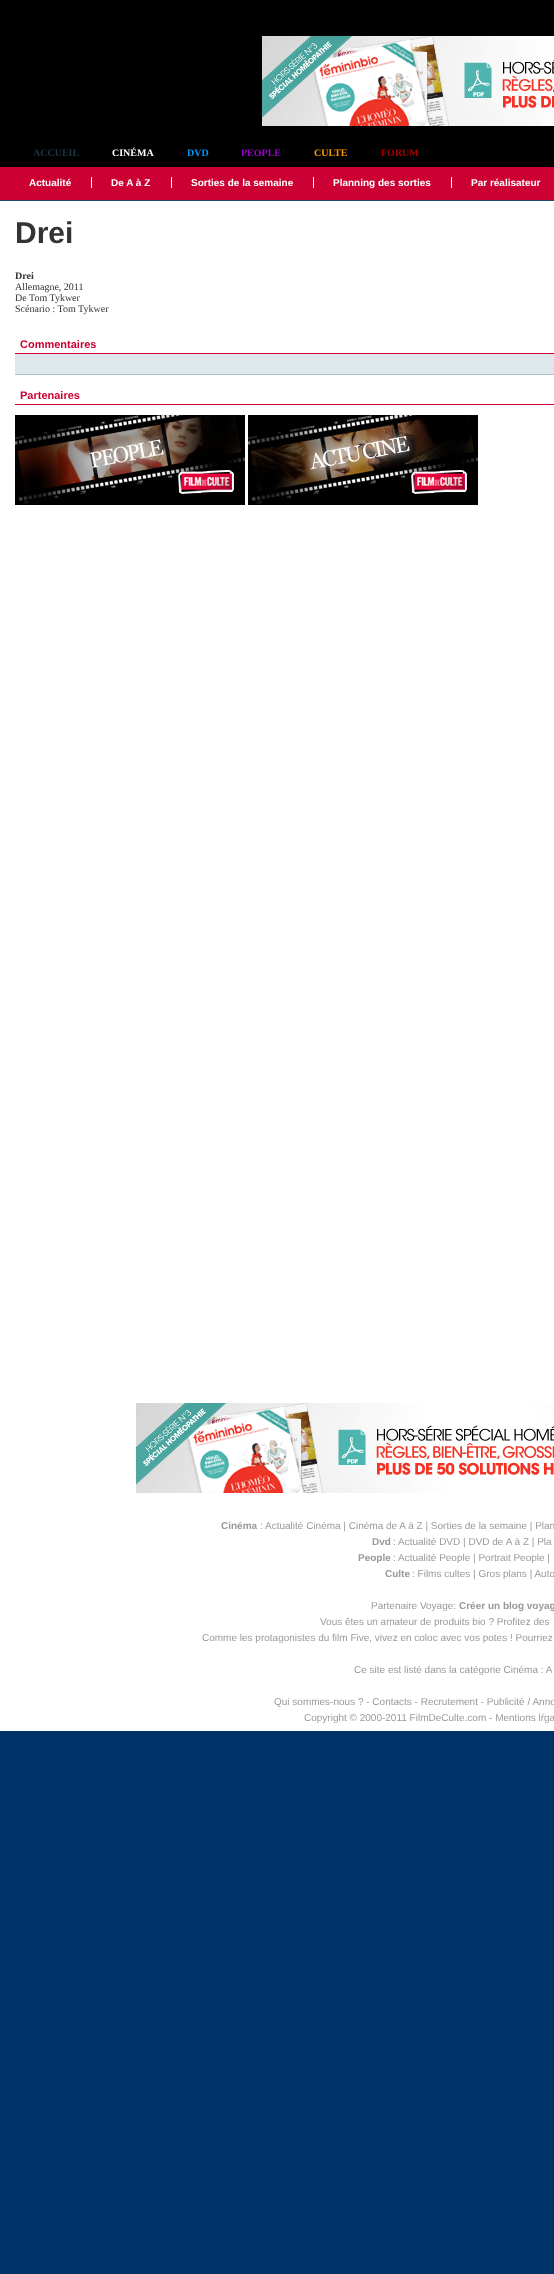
<!DOCTYPE html>
<meta charset="utf-8">
<style>body { margin: 0 } canvas { display: block }</style>
<canvas id="canvas" width="554" height="2274"></canvas>
<script type="module">
  const canvas = document.getElementById("canvas");
  const g = canvas.getContext("2d");
  g.miterLimit = 4;
  g.fontKerning = "normal";
  function drawText(s, x, y, [font, color]) {
    g.font = font;
    g.fillStyle = color;
    g.fillText(s, x, y);
  }
  function fillBox(x, y, w, h, color) {
    g.fillStyle = color;
    g.fillRect(x, y, w, h);
  }
  async function drawPicture(src, x, y, w, h) {
    const img = new Image();
    img.src = src;
    await img.decode();
    g.drawImage(img, x, y, w, h);
  }

  const s1 = ["bold 10px Liberation Serif", "#1F3646"];
  const s2 = ["bold 10px Liberation Serif", "#FFFFFF"];
  const s3 = ["bold 10px Liberation Serif", "#0099FF"];
  const s4 = ["bold 10px Liberation Serif", "#9900CC"];
  const s5 = ["bold 10px Liberation Serif", "#FF9900"];
  const s6 = ["bold 10px Liberation Serif", "#AA0000"];
  const s7 = ["bold 10px Liberation Sans", "#FFFFFF"];
  const s8 = ["bold 30px Liberation Sans", "#333333"];
  const s9 = ["bold 10px Liberation Serif", "#333333"];
  const s10 = ["10px Liberation Serif", "#333333"];
  const s11 = ["bold 11px Liberation Sans", "#CC0033"];
  const s12 = ["bold 10px Liberation Sans", "#999999"];
  const s13 = ["10px Liberation Sans", "#999999"];

  fillBox(0, 0, 554, 2274, "#003367");
  fillBox(0, 201, 554, 1530, "#FFFFFF");
  fillBox(0, 0, 554, 167, "#000000");
  await drawPicture("pic1.png", 262, 36, 292, 90);
  drawText("ACCUEIL", 33, 156, s1);
  drawText("CINÉMA", 112, 156, s2);
  drawText("DVD", 187, 156, s3);
  drawText("PEOPLE", 241, 156, s4);
  drawText("CULTE", 314, 156, s5);
  drawText("FORUM", 381, 156, s6);
  fillBox(0, 167, 554, 33, "#CC0033");
  fillBox(0, 200, 554, 1, "#224466");
  fillBox(91, 177, 1, 11, "#FFFFFF");
  drawText("Actualité", 29, 186, s7);
  fillBox(171, 177, 1, 11, "#FFFFFF");
  drawText("De A à Z", 111, 186, s7);
  fillBox(313, 177, 1, 11, "#FFFFFF");
  drawText("Sorties de la semaine", 191, 186, s7);
  fillBox(451, 177, 1, 11, "#FFFFFF");
  drawText("Planning des sorties", 333, 186, s7);
  drawText("Par réalisateur", 471, 186, s7);
  drawText("Drei", 15, 243, s8);
  drawText("Drei", 15, 279, s9);
  drawText("Allemagne, 2011", 15, 290, s10);
  drawText("De Tom Tykwer", 15, 301, s10);
  drawText("Scénario : Tom Tykwer", 15, 312, s10);
  fillBox(15, 354, 539, 20, "#DEE7EC");
  fillBox(15, 374, 539, 1, "#ABBEC9");
  fillBox(15, 353, 539, 1, "#CC0033");
  drawText("Commentaires", 20, 348, s11);
  fillBox(15, 404, 539, 1, "#CC0033");
  drawText("Partenaires", 20, 399, s11);
  await drawPicture("pic2.png", 15, 415, 230, 90);
  await drawPicture("pic3.png", 248, 415, 230, 90);
  await drawPicture("pic4.png", 136, 1403, 418, 90);
  drawText("Cinéma", 221, 1529, s12);
  drawText(": Actualité Cinéma | Cinéma de A à Z | Sorties de la semaine | Plan", 260, 1529, s13);
  drawText("Dvd", 372, 1545, s12);
  drawText(": Actualité DVD | DVD de A à Z | Pla", 393, 1545, s13);
  drawText("People", 358, 1561, s12);
  drawText(": Actualité People | Portrait People |", 393, 1561, s13);
  drawText("Culte", 385, 1577, s12);
  drawText(": Films cultes | Gros plans | Auto", 412, 1577, s13);
  drawText("Partenaire Voyage:", 371, 1609, s13);
  drawText("Créer un blog voyag", 459, 1609, s12);
  drawText("Vous êtes un amateur de produits bio ? Profitez des", 320, 1625, s13);
  drawText("Comme les protagonistes du film Five, vivez en coloc avec vos potes ! Pourriez", 202, 1641, s13);
  drawText("Ce site est listé dans la catégorie Cinéma : A", 354, 1673, s13);
  drawText("Qui sommes-nous ? - Contacts - Recrutement - Publicité / Anno", 274, 1705, s13);
  drawText("Copyright © 2000-2011 FilmDeCulte.com - Mentions lŕga", 304, 1721, s13);
</script>
